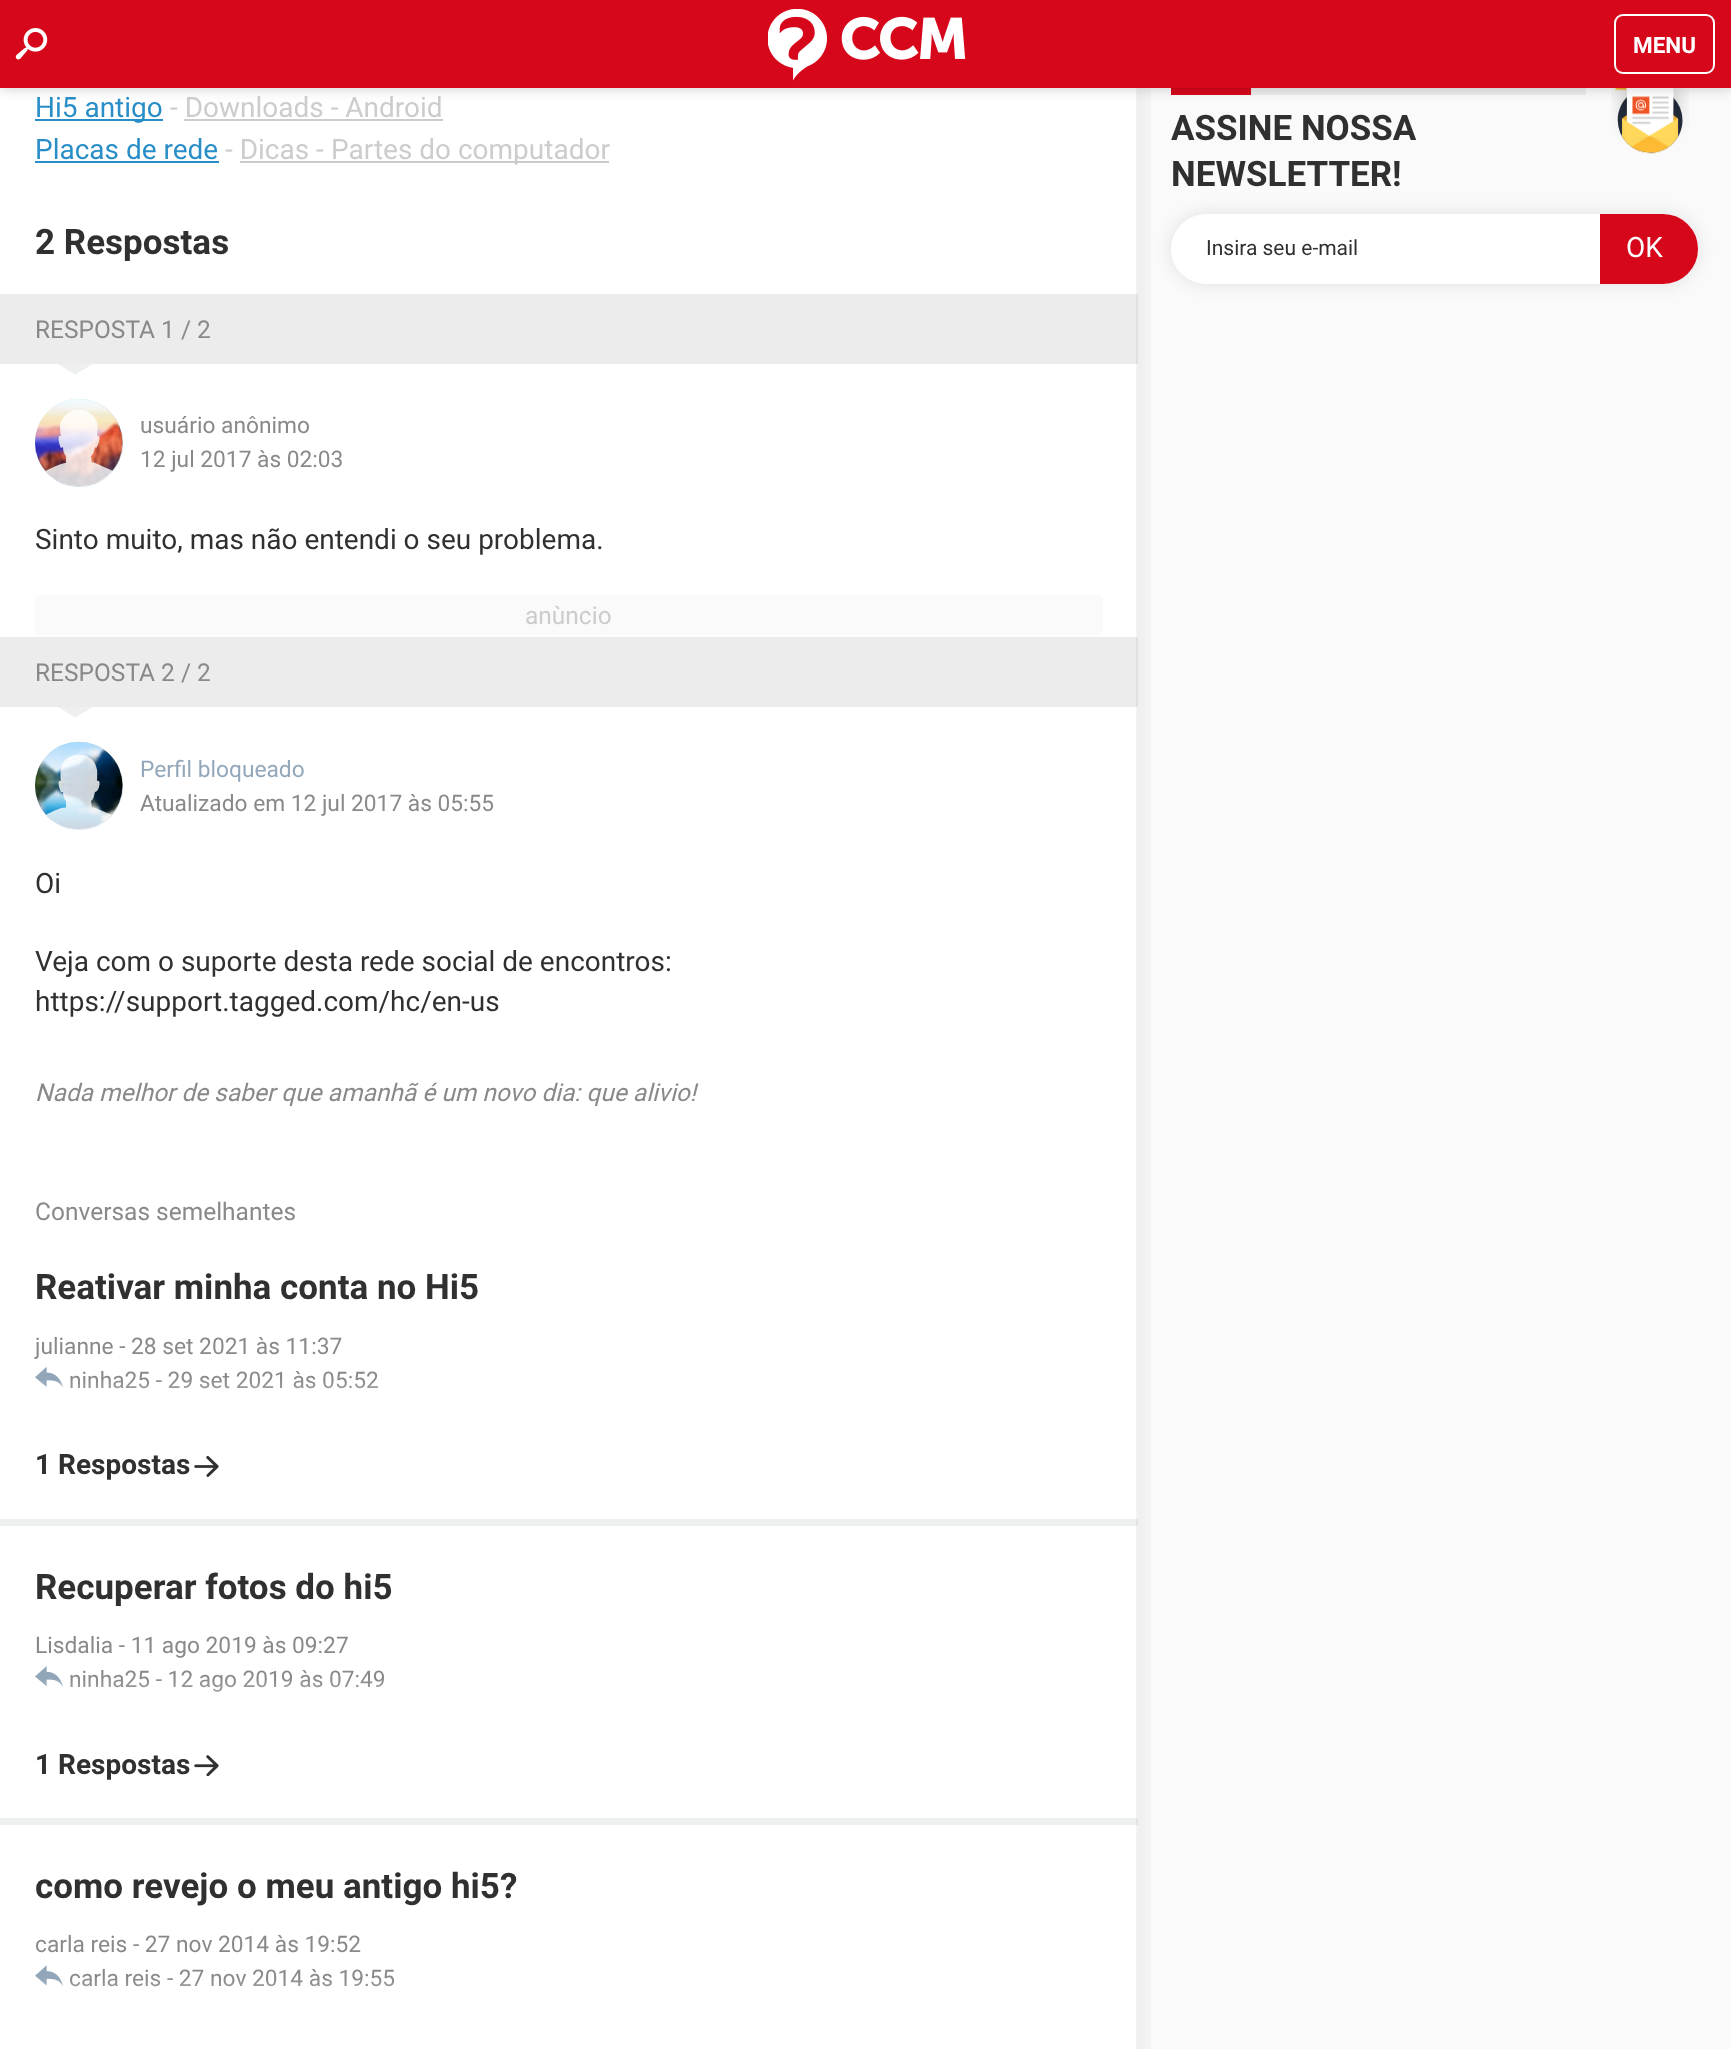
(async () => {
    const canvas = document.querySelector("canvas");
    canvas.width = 1731;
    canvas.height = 2049;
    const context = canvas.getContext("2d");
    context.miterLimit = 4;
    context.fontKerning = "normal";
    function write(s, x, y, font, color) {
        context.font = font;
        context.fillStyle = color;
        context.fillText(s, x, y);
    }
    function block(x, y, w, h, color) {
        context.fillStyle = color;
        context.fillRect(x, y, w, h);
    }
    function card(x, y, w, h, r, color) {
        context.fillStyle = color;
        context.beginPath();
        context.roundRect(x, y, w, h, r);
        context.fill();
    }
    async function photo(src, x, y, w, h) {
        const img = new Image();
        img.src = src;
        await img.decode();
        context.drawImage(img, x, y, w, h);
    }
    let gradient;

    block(0, 0, 1731, 2049, "rgb(255, 255, 255)");
    block(1138, 88, 593, 1961, "rgb(250, 250, 250)");
    block(0, 294, 1138, 70, "rgb(236, 236, 236)");
    block(0, 637, 1138, 70, "rgb(236, 236, 236)");
    block(0, 1519, 1138, 7, "rgb(238, 240, 239)");
    block(0, 1818, 1138, 7, "rgb(238, 240, 239)");
    gradient = context.createLinearGradient(1136, 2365, 1162, 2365);
    gradient.addColorStop(0, "rgba(0, 0, 0, 0.05)");
    gradient.addColorStop(1, "rgba(0, 0, 0, 0)");
    context.fillStyle = gradient;
    context.fillRect(1136, 88, 15, 1961);
    block(1251, 88, 335, 7, "rgb(236, 236, 236)");
    block(1171, 88, 80, 7, "rgb(214, 7, 27)");
    await photo("media/10.png", 1611, 88, 78, 66);
    context.fillStyle = "rgba(0, 0, 0, 0.2)";
    context.filter = "blur(7px)";
    context.beginPath();
    context.rect(0, 0, 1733, 88);
    context.fill();
    context.filter = "none";
    block(0, 0, 1731, 88, "rgb(214, 7, 27)");
    await photo("media/1.png", 15, 28, 33, 32);
    await photo("media/2.png", 768, 9, 198, 72);
    context.beginPath();
    context.roundRect(1615, 15, 99, 58, 8);
    context.strokeStyle = "rgb(255, 255, 255)";
    context.lineWidth = 2;
    context.stroke();
    write("MENU", 1633, 53, "bold 22.5px Roboto", "rgb(255, 255, 255)");
    block(35, 119, 128, 2, "rgb(41, 142, 200)");
    write("Hi5 antigo", 35, 117, "28px Roboto", "rgb(41, 142, 200)");
    write("- Downloads - Android", 170, 117, "28px Roboto", "rgb(204, 204, 204)");
    block(184, 119, 259, 2, "rgb(204, 204, 204)");
    write("Placas de rede", 35, 159, "28px Roboto", "rgb(41, 142, 200)");
    block(35, 161, 184, 2, "rgb(41, 142, 200)");
    write("- Dicas -", 225, 159, "28px Roboto", "rgb(204, 204, 204)");
    block(240, 161, 369, 2, "rgb(204, 204, 204)");
    write("Partes do computador", 331, 159, "28px Roboto", "rgb(204, 204, 204)");
    write("2 Respostas", 35, 254, "bold 35px Roboto", "rgb(48, 48, 48)");
    write("RESPOSTA 1 / 2", 35, 338, "24.5px Roboto", "rgb(137, 137, 137)");
    context.fillStyle = "rgb(238, 240, 239)";
    context.beginPath();
    context.moveTo(58, 364);
    context.lineTo(93, 364);
    context.lineTo(75, 374.5);
    context.closePath();
    context.fill();
    context.fillStyle = "rgb(176, 190, 203)";
    context.beginPath();
    context.arc(79, 443, 44, 0, Math.PI * 2);
    context.fill();
    await photo("media/3.png", 35, 398, 88, 89);
    context.save();
    context.beginPath();
    context.rect(44, 410, 70, 78);
    context.clip();
    context.fillStyle = "rgba(255, 255, 255, 0.8)";
    context.beginPath();
    context.moveTo(93, 462);
    context.lineTo(113, 471);
    context.bezierCurveTo(96, 492, 62, 492, 45, 471);
    context.bezierCurveTo(49, 469, 64, 462, 66, 463);
    context.lineTo(66, 456);
    context.bezierCurveTo(64, 454, 63, 451, 63, 447);
    context.lineTo(61, 448);
    context.bezierCurveTo(60, 447, 56, 434, 61, 436);
    context.bezierCurveTo(60, 431, 59, 424, 62, 420);
    context.bezierCurveTo(70, 406, 88, 406, 96, 420);
    context.bezierCurveTo(99, 425, 97, 431, 97, 436);
    context.bezierCurveTo(102, 434, 98, 447, 96, 448);
    context.lineTo(95, 447);
    context.bezierCurveTo(94, 451, 94, 454, 91, 456);
    context.lineTo(92, 463);
    context.closePath();
    context.fill();
    context.restore();
    write("usuário anônimo", 140, 433, "22.75px Roboto", "rgb(137, 137, 137)");
    write("12 jul 2017 às 02:03", 140, 467, "22.75px Roboto", "rgb(137, 137, 137)");
    write("Sinto muito, mas não entendi o seu problema.", 35, 549, "28px Roboto", "rgb(48, 48, 48)");
    card(35, 595, 1068, 40, 5, "rgb(250, 250, 250)");
    write("anùncio", 525, 624, "24.5px Roboto", "rgb(204, 204, 204)");
    write("RESPOSTA 2 / 2", 35, 681, "24.5px Roboto", "rgb(137, 137, 137)");
    context.fillStyle = "rgb(238, 240, 239)";
    context.beginPath();
    context.moveTo(58, 707);
    context.lineTo(93, 707);
    context.lineTo(75, 717.5);
    context.closePath();
    context.fill();
    context.fillStyle = "rgb(176, 190, 203)";
    context.beginPath();
    context.arc(79, 786, 44, 0, Math.PI * 2);
    context.fill();
    await photo("media/4.png", 35, 741, 88, 89);
    context.fillStyle = "rgba(255, 255, 255, 0.8)";
    context.beginPath();
    context.moveTo(93, 807);
    context.lineTo(112, 815);
    context.bezierCurveTo(94, 835, 63, 835, 46, 815);
    context.bezierCurveTo(51, 812, 64, 806, 66, 808);
    context.lineTo(66, 801);
    context.bezierCurveTo(64, 799, 63, 795, 63, 792);
    context.lineTo(61, 792);
    context.bezierCurveTo(60, 791, 56, 779, 61, 781);
    context.bezierCurveTo(60, 774, 60, 766, 65, 760);
    context.bezierCurveTo(74, 751, 92, 753, 96, 766);
    context.bezierCurveTo(98, 771, 97, 776, 97, 781);
    context.bezierCurveTo(102, 779, 99, 792, 95, 792);
    context.bezierCurveTo(94, 795, 94, 799, 91, 801);
    context.lineTo(92, 808);
    context.closePath();
    context.fill();
    write("Perfil bloqueado", 140, 777, "22.75px Roboto", "rgb(146, 167, 186)");
    write("Atualizado em 12 jul 2017 às 05:55", 140, 811, "22.75px Roboto", "rgb(137, 137, 137)");
    write("Oi", 35, 893, "28px Roboto", "rgb(48, 48, 48)");
    write("Veja com o suporte desta rede social de encontros:", 35, 971, "28px Roboto", "rgb(48, 48, 48)");
    write("https://support.tagged.com/hc/en-us", 35, 1011, "28px Roboto", "rgb(48, 48, 48)");
    write("Nada melhor de saber que amanhã é um novo dia: que alivio!", 35, 1101, "italic 24.5px Roboto", "rgb(137, 137, 137)");
    write("Conversas semelhantes", 35, 1220, "24.5px Roboto", "rgb(137, 137, 137)");
    write("Reativar minha conta no Hi5", 35, 1299, "bold 35px Roboto", "rgb(48, 48, 48)");
    write("julianne - 28 set 2021 às 11:37", 35, 1354, "22.75px Roboto", "rgb(137, 137, 137)");
    await photo("media/5.png", 35, 1367, 28, 21);
    write("ninha25 - 29 set 2021 às 05:52", 69, 1388, "22.75px Roboto", "rgb(137, 137, 137)");
    gradient = context.createLinearGradient(569, 1379, 569, 1519);
    gradient.addColorStop(0, "rgba(255, 255, 255, 0)");
    gradient.addColorStop(0.45, "rgb(255, 255, 255)");
    context.fillStyle = gradient;
    context.fillRect(40, 1380, 338, 9);
    write("1 Respostas", 35, 1474, "bold 28px Roboto", "rgb(48, 48, 48)");
    await photo("media/6.png", 194, 1456, 25, 21);
    write("Recuperar fotos do hi5", 35, 1599, "bold 35px Roboto", "rgb(48, 48, 48)");
    write("Lisdalia - 11 ago 2019 às 09:27", 35, 1653, "22.75px Roboto", "rgb(137, 137, 137)");
    await photo("media/7.png", 35, 1666, 28, 21);
    write("ninha25 - 12 ago 2019 às 07:49", 69, 1687, "22.75px Roboto", "rgb(137, 137, 137)");
    gradient = context.createLinearGradient(569, 1678, 569, 1818);
    gradient.addColorStop(0, "rgba(255, 255, 255, 0)");
    gradient.addColorStop(0.45, "rgb(255, 255, 255)");
    context.fillStyle = gradient;
    context.fillRect(40, 1679, 344, 13);
    write("1 Respostas", 35, 1774, "bold 28px Roboto", "rgb(48, 48, 48)");
    await photo("media/8.png", 194, 1755, 25, 21);
    write("como revejo o meu antigo hi5?", 35, 1898, "bold 35px Roboto", "rgb(48, 48, 48)");
    write("carla reis - 27 nov 2014 às 19:52", 35, 1952, "22.75px Roboto", "rgb(137, 137, 137)");
    await photo("media/9.png", 35, 1965, 28, 21);
    write("carla reis - 27 nov 2014 às 19:55", 69, 1986, "22.75px Roboto", "rgb(137, 137, 137)");
    gradient = context.createLinearGradient(569, 1978, 569, 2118);
    gradient.addColorStop(0, "rgba(255, 255, 255, 0)");
    gradient.addColorStop(0.45, "rgb(255, 255, 255)");
    context.fillStyle = gradient;
    context.fillRect(41, 1979, 353, 8);
    write("ASSINE NOSSA", 1171, 140, "bold 35px Roboto", "rgb(48, 48, 48)");
    write("NEWSLETTER!", 1171, 186, "bold 35px Roboto", "rgb(48, 48, 48)");
    context.fillStyle = "rgba(0, 0, 0, 0.1)";
    context.filter = "blur(9px)";
    context.beginPath();
    context.roundRect(1171, 214, 527, 70, 35);
    context.fill();
    context.filter = "none";
    card(1171, 214, 527, 70, 35, "rgb(255, 255, 255)");
    write("Insira seu e-mail", 1206, 255, "21px Roboto", "rgb(48, 48, 48)");
    context.fillStyle = "rgb(214, 7, 27)";
    context.beginPath();
    context.roundRect(1602, 216, 94, 66, [0, 33, 33, 0]);
    context.fill();
    context.strokeStyle = "rgb(214, 7, 27)";
    context.lineWidth = 4;
    context.stroke();
    write("OK", 1626, 257, "28px Roboto", "rgb(255, 255, 255)");
})();
